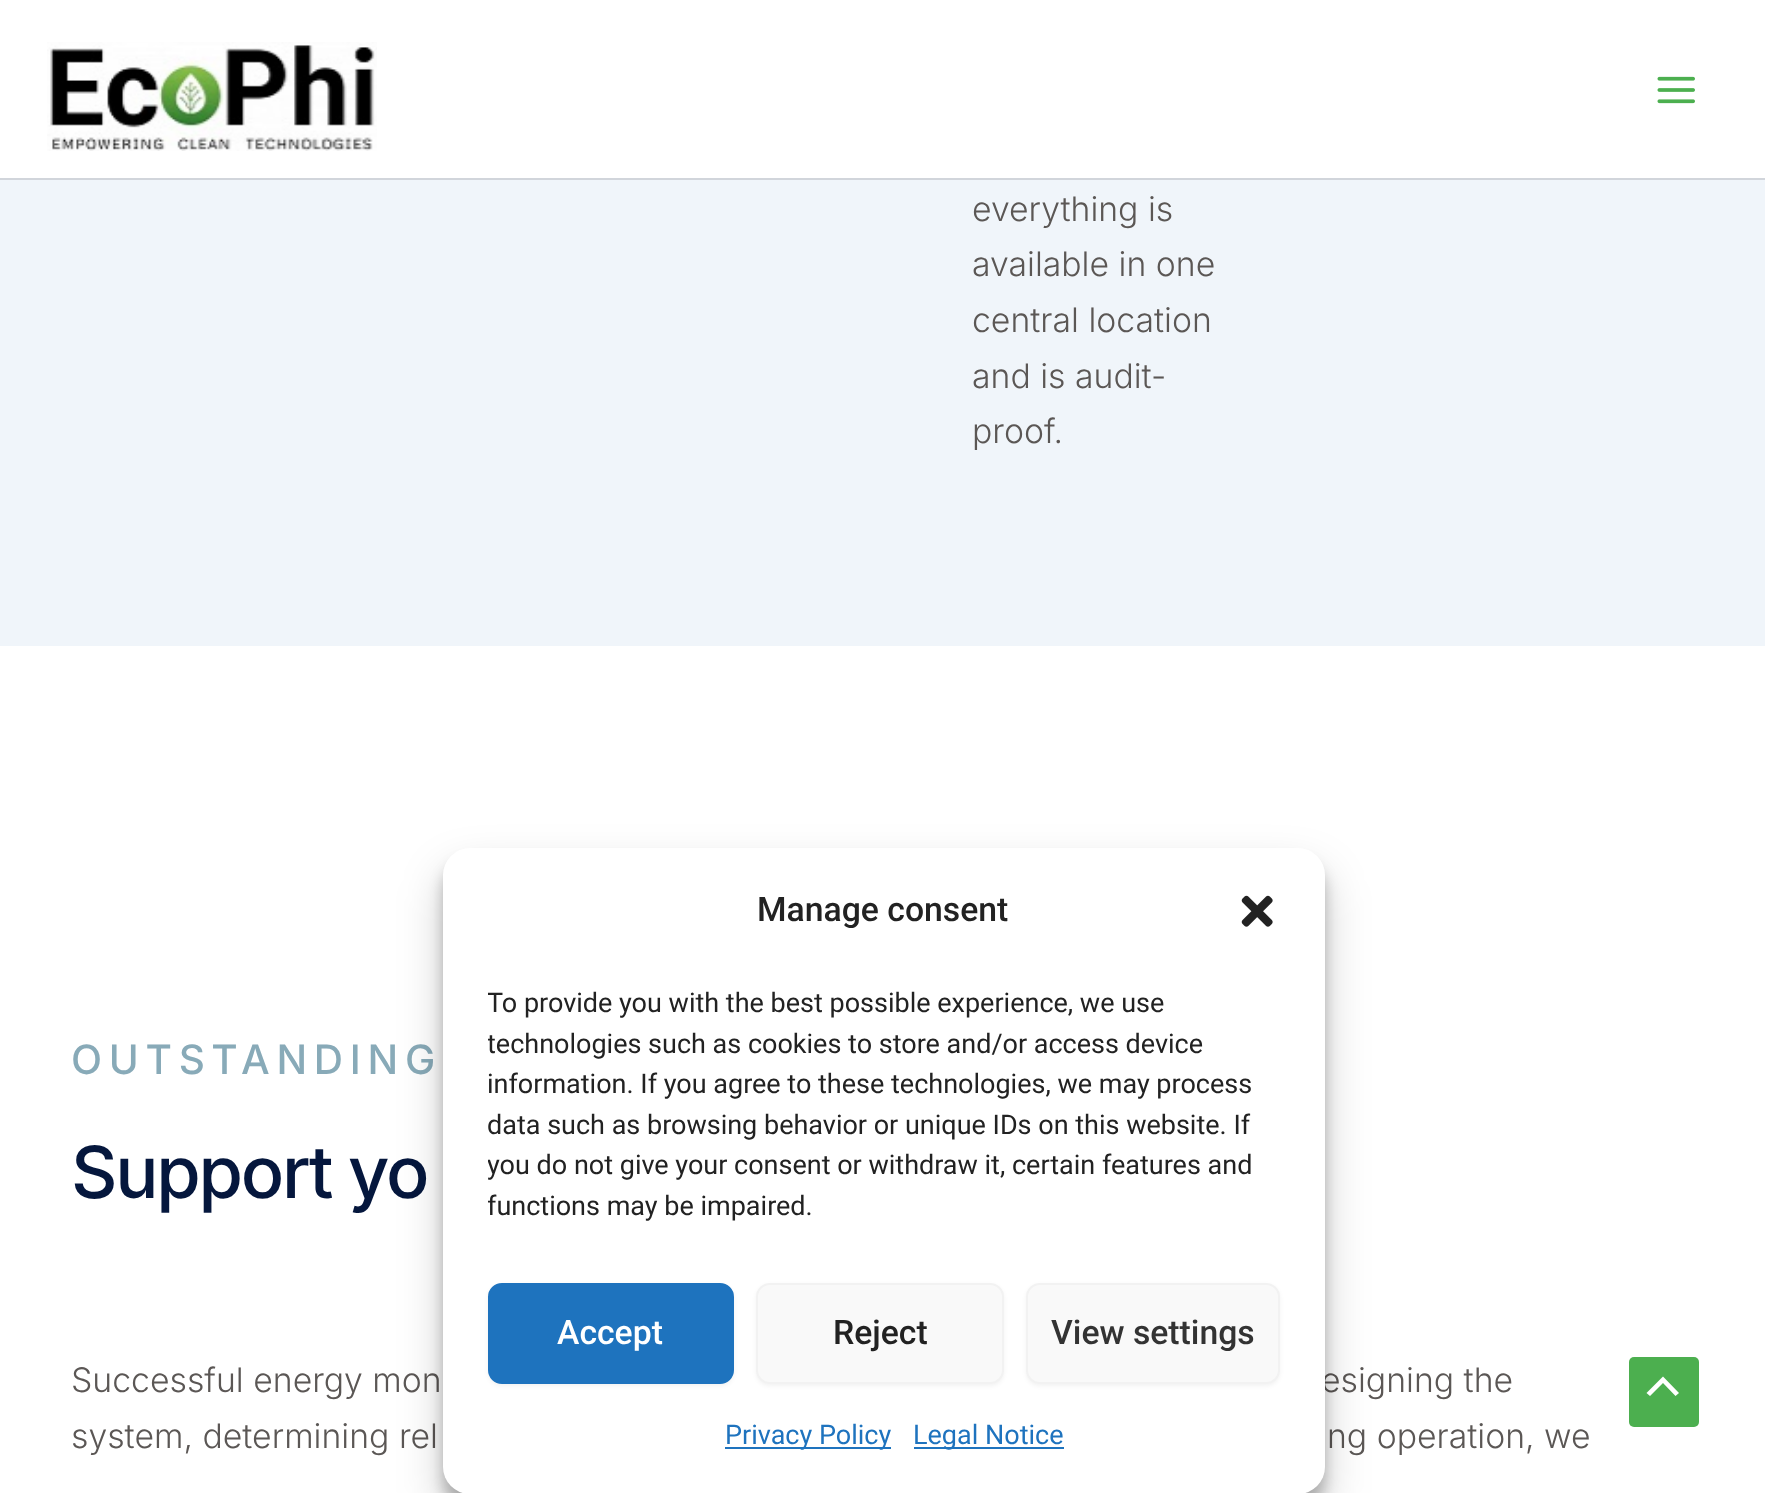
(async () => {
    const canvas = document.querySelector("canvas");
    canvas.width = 1765;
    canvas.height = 1493;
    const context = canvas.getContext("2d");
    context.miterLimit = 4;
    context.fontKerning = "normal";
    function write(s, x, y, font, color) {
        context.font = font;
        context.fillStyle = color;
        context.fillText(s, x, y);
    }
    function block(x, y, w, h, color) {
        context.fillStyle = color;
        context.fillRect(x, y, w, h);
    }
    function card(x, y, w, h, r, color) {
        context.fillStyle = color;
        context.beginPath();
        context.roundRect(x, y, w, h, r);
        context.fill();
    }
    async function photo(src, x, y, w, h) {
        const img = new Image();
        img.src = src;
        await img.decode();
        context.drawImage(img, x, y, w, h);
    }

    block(0, 0, 1765, 1493, "rgb(255, 255, 255)");
    block(0, 178, 1765, 2, "rgb(209, 213, 219)");
    await photo("media/1.png", 47, 42, 330, 109);
    await photo("media/2.png", 1657, 76, 38, 28);
    block(0, 180, 1765, 466, "rgb(240, 245, 250)");
    write("everything is", 972, 221, "300 33.75px Inter", "rgb(91, 87, 85)");
    write("available in one", 972, 276, "300 33.75px Inter", "rgb(91, 87, 85)");
    write("central location", 972, 332, "300 33.75px Inter", "rgb(91, 87, 85)");
    write("and is audit-", 972, 388, "300 33.75px Inter", "rgb(91, 87, 85)");
    write("proof.", 972, 443, "300 33.75px Inter", "rgb(91, 87, 85)");
    context.letterSpacing = "6.75px";
    write("OUTSTANDING", 71, 1074, "500 40.5px Inter", "rgb(136, 170, 184)");
    context.letterSpacing = "-2.25px";
    write("Support yo", 71, 1198, "500 72px Inter", "rgb(5, 23, 61)");
    context.letterSpacing = "0px";
    write("Successful energy mon", 71, 1392, "300 33.75px Inter", "rgb(91, 87, 85)");
    write("esigning the", 1321, 1392, "300 33.75px Inter", "rgb(91, 87, 85)");
    write("system, determining rel", 71, 1448, "300 33.75px Inter", "rgb(91, 87, 85)");
    write("ng operation, we", 1327, 1448, "300 33.75px Inter", "rgb(91, 87, 85)");
    context.fillStyle = "rgba(0, 0, 0, 0.23)";
    context.filter = "blur(7px)";
    context.beginPath();
    context.roundRect(443, 862, 882, 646, 27);
    context.fill();
    context.filter = "none";
    context.fillStyle = "rgba(0, 0, 0, 0.19)";
    context.filter = "blur(22.5px)";
    context.beginPath();
    context.roundRect(443, 871, 882, 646, 27);
    context.fill();
    context.filter = "none";
    card(443, 848, 882, 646, 27, "rgb(255, 255, 255)");
    write("Manage consent", 757, 921, "500 33.75px Roboto", "rgb(34, 34, 34)");
    await photo("media/3.png", 1241, 895, 32, 32);
    context.save();
    context.beginPath();
    context.rect(488, 983, 792, 255);
    context.clip();
    write("To provide you with the best possible experience, we use", 487, 1012, "27px Roboto", "rgb(34, 34, 34)");
    write("technologies such as cookies to store and/or access device", 487, 1053, "27px Roboto", "rgb(34, 34, 34)");
    context.restore();
    write("information. If you agree to these technologies, we may process", 487, 1093, "27px Roboto", "rgb(34, 34, 34)");
    context.save();
    context.beginPath();
    context.rect(488, 983, 792, 255);
    context.clip();
    write("data such as browsing behavior or unique IDs on this website. If", 487, 1134, "27px Roboto", "rgb(34, 34, 34)");
    write("you do not give your consent or withdraw it, certain features and", 487, 1174, "27px Roboto", "rgb(34, 34, 34)");
    write("functions may be impaired.", 487, 1215, "27px Roboto", "rgb(34, 34, 34)");
    context.restore();
    context.fillStyle = "rgba(0, 0, 0, 0.05)";
    context.filter = "blur(2px)";
    context.beginPath();
    context.roundRect(488, 1285, 246, 101, 14);
    context.fill();
    context.filter = "none";
    context.fillStyle = "rgb(30, 115, 190)";
    context.beginPath();
    context.roundRect(489, 1284, 244, 99, 13);
    context.fill();
    context.strokeStyle = "rgb(30, 115, 190)";
    context.lineWidth = 2;
    context.stroke();
    write("Accept", 557, 1344, "500 33.75px Roboto", "rgb(255, 255, 255)");
    context.fillStyle = "rgba(0, 0, 0, 0.05)";
    context.filter = "blur(2px)";
    context.beginPath();
    context.roundRect(756, 1285, 248, 101, 14);
    context.fill();
    context.filter = "none";
    context.fillStyle = "rgb(249, 249, 249)";
    context.beginPath();
    context.roundRect(757, 1284, 246, 99, 13);
    context.fill();
    context.strokeStyle = "rgb(242, 242, 242)";
    context.stroke();
    write("Reject", 833, 1344, "500 33.75px Roboto", "rgb(34, 34, 34)");
    context.fillStyle = "rgba(0, 0, 0, 0.05)";
    context.filter = "blur(2px)";
    context.beginPath();
    context.roundRect(1026, 1285, 254, 101, 14);
    context.fill();
    context.filter = "none";
    context.fillStyle = "rgb(249, 249, 249)";
    context.beginPath();
    context.roundRect(1027, 1284, 252, 99, 13);
    context.fill();
    context.stroke();
    write("View settings", 1051, 1344, "500 33.75px Roboto", "rgb(51, 51, 51)");
    block(725, 1447, 166, 2, "rgb(30, 115, 190)");
    write("Privacy Policy", 725, 1444, "27px Roboto", "rgb(30, 115, 190)");
    block(914, 1447, 150, 2, "rgb(30, 115, 190)");
    write("Legal Notice", 913, 1444, "27px Roboto", "rgb(30, 115, 190)");
    card(1629, 1357, 70, 70, 5, "rgb(76, 175, 79)");
    context.fillStyle = "rgb(255, 255, 255)";
    context.beginPath();
    context.moveTo(1679, 1393);
    context.lineTo(1663, 1376.5);
    context.lineTo(1646.5, 1393);
    context.lineTo(1650, 1396);
    context.lineTo(1663, 1383);
    context.lineTo(1675.5, 1396);
    context.closePath();
    context.fill();
})();
